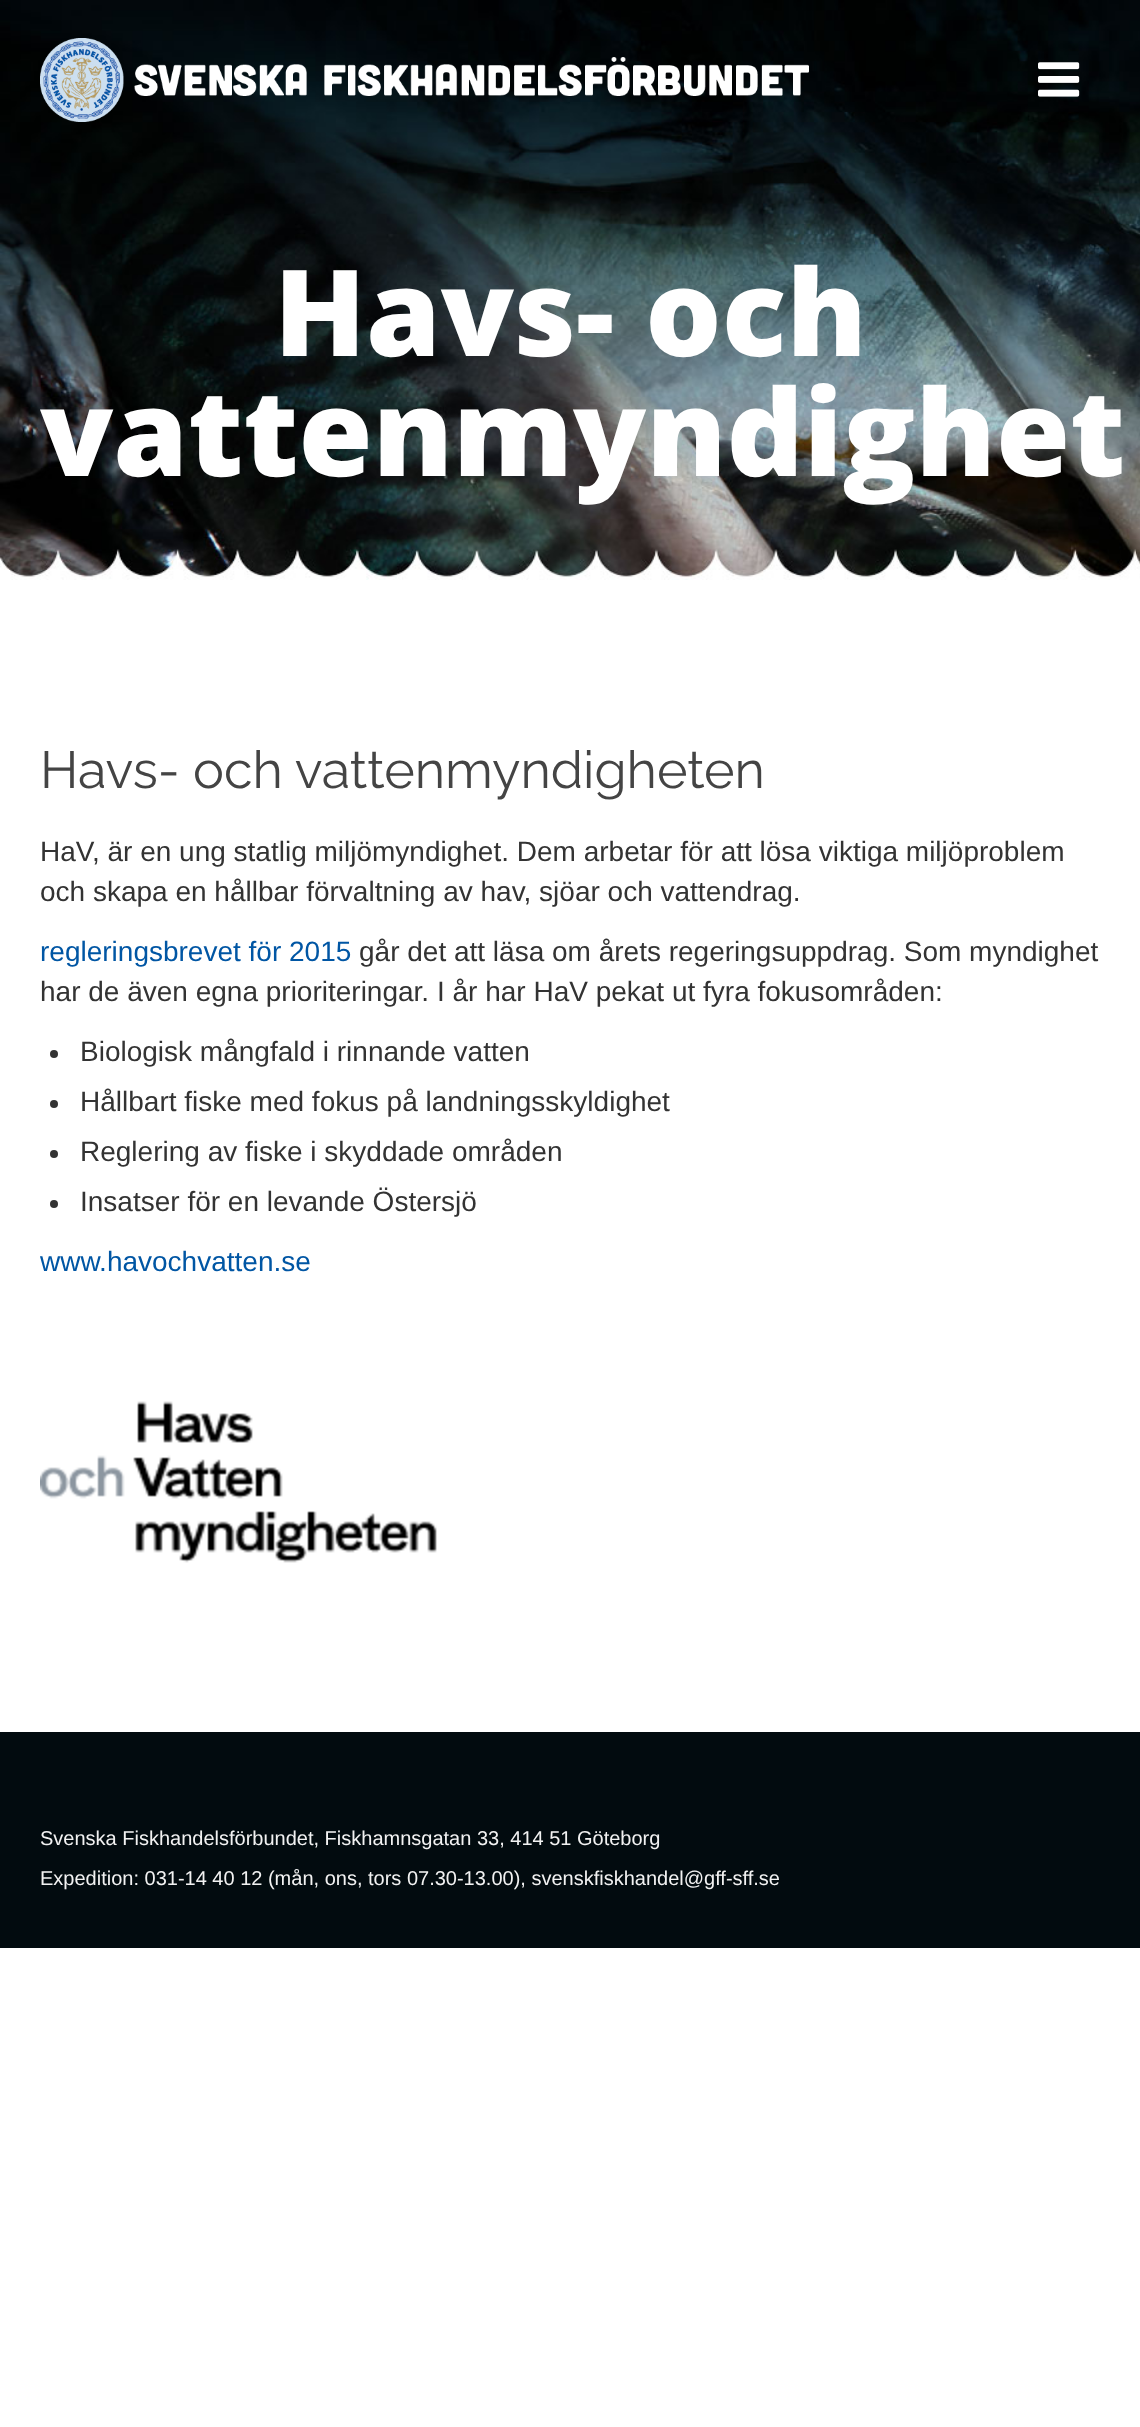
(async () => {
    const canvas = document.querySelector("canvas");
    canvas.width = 1140;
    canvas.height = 2427;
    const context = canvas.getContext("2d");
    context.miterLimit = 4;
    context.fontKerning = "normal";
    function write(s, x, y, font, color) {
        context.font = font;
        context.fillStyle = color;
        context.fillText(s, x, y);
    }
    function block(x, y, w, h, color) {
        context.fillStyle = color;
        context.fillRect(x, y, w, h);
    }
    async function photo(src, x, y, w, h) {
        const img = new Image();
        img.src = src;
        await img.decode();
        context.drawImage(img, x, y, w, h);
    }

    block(0, 0, 1140, 2427, "rgb(255, 255, 255)");
    await photo("media/3.png", 0, 0, 1140, 580);
    await photo("media/1.png", 40, 38, 769, 84);
    await photo("media/2.png", 1038, 62, 42, 35);
    write("Havs- och", 274, 356, "800 120px Open Sans", "rgb(255, 255, 255)");
    write("vattenmyndighet", 40, 476, "800 120px Open Sans", "rgb(255, 255, 255)");
    write("Havs- och vattenmyndigheten", 40, 788, "52px Raleway", "rgb(68, 68, 68)");
    write("HaV, är en ung statlig miljömyndighet. Dem arbetar för att lösa viktiga miljöproblem", 40, 861, "28px Liberation Sans", "rgb(51, 51, 51)");
    write("och skapa en hållbar förvaltning av hav, sjöar och vattendrag.", 40, 901, "28px Liberation Sans", "rgb(51, 51, 51)");
    write("regleringsbrevet för 2015", 40, 961, "28px Liberation Sans", "rgb(0, 86, 164)");
    write("går det att läsa om årets regeringsuppdrag. Som myndighet", 359, 961, "28px Liberation Sans", "rgb(51, 51, 51)");
    write("har de även egna prioriteringar. I år har HaV pekat ut fyra fokusområden:", 40, 1001, "28px Liberation Sans", "rgb(51, 51, 51)");
    context.beginPath();
    context.arc(54, 1054, 4, 0, Math.PI * 2);
    context.fill();
    write("Biologisk mångfald i rinnande vatten", 80, 1061, "28px Liberation Sans", "rgb(51, 51, 51)");
    context.beginPath();
    context.arc(54, 1104, 4, 0, Math.PI * 2);
    context.fill();
    write("Hållbart fiske med fokus på landningsskyldighet", 80, 1111, "28px Liberation Sans", "rgb(51, 51, 51)");
    context.beginPath();
    context.arc(54, 1154, 4, 0, Math.PI * 2);
    context.fill();
    write("Reglering av fiske i skyddade områden", 80, 1161, "28px Liberation Sans", "rgb(51, 51, 51)");
    context.beginPath();
    context.arc(54, 1204, 4, 0, Math.PI * 2);
    context.fill();
    write("Insatser för en levande Östersjö", 80, 1211, "28px Liberation Sans", "rgb(51, 51, 51)");
    write("www.havochvatten.se", 40, 1271, "28px Liberation Sans", "rgb(0, 86, 164)");
    await photo("media/4.png", 40, 1401, 397, 162);
    block(0, 1732, 1140, 216, "rgb(2, 11, 15)");
    write("Svenska Fiskhandelsförbundet, Fiskhamnsgatan 33, 414 51 Göteborg", 40, 1845, "20px Liberation Sans", "rgb(242, 242, 242)");
    write("Expedition: 031-14 40 12 (mån, ons, tors 07.30-13.00), svenskfiskhandel@gff-sff.se", 40, 1885, "20px Liberation Sans", "rgb(242, 242, 242)");
})();
